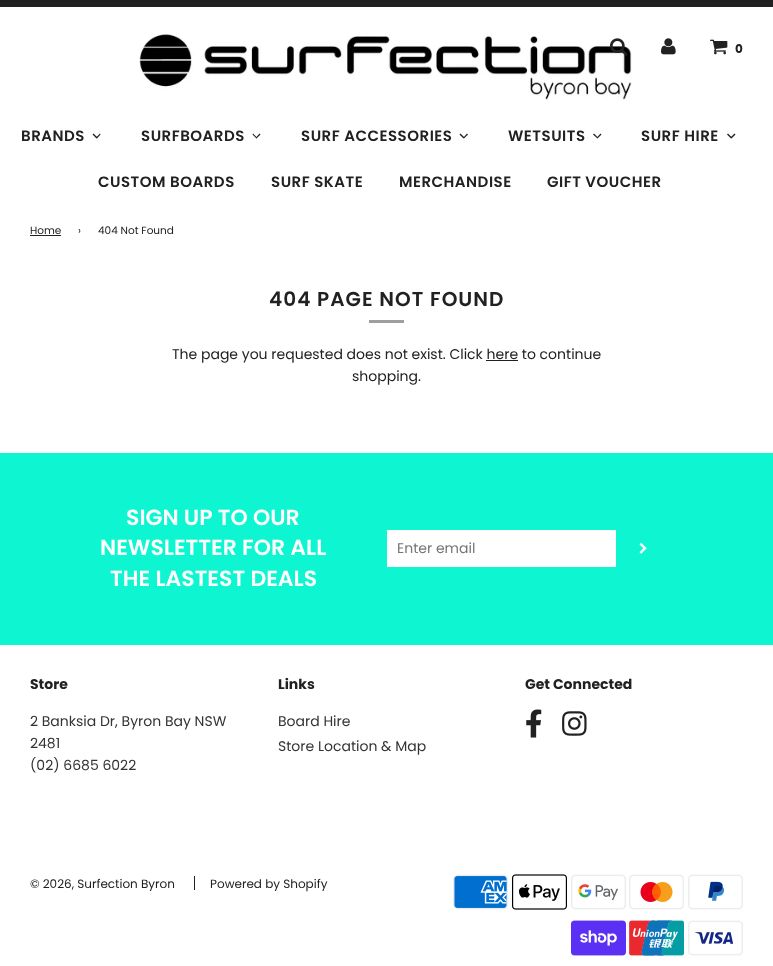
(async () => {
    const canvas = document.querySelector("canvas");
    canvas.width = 773;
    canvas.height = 966;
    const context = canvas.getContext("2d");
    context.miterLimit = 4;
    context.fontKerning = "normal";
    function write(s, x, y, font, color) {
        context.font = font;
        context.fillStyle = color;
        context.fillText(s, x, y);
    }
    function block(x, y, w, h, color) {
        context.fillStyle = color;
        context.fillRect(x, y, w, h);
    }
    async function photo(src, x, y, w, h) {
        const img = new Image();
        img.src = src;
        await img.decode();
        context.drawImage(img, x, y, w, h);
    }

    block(0, 0, 773, 966, "rgb(255, 255, 255)");
    block(0, 0, 773, 7, "rgb(33, 33, 33)");
    await photo("media/1.png", 139, 34, 493, 66);
    await photo("media/2.png", 610, 38, 18, 18);
    await photo("media/3.png", 661, 38, 15, 17);
    await photo("media/4.png", 710, 39, 18, 16);
    write("0", 735, 53, "bold 12px Poppins", "rgb(33, 33, 33)");
    context.letterSpacing = "0.5px";
    write("BRANDS", 21, 141, "600 15px Poppins", "rgb(33, 33, 33)");
    context.beginPath();
    context.moveTo(100, 133.5);
    context.lineTo(100.5, 134.5);
    context.lineTo(97, 138.5);
    context.lineTo(96, 137.5);
    context.closePath();
    context.fill();
    context.beginPath();
    context.moveTo(93.5, 133.5);
    context.lineTo(97.5, 137.5);
    context.lineTo(96.5, 138.5);
    context.lineTo(92.5, 134.5);
    context.closePath();
    context.fill();
    write("SURFBOARDS", 141, 141, "600 15px Poppins", "rgb(33, 33, 33)");
    context.beginPath();
    context.moveTo(259.5, 133.5);
    context.lineTo(260.5, 134.5);
    context.lineTo(256.5, 138.5);
    context.lineTo(256, 137.5);
    context.closePath();
    context.fill();
    context.beginPath();
    context.moveTo(253, 133.5);
    context.lineTo(257, 137.5);
    context.lineTo(256.5, 138.5);
    context.lineTo(252.5, 134.5);
    context.closePath();
    context.fill();
    write("SURF ACCESSORIES", 301, 141, "600 15px Poppins", "rgb(33, 33, 33)");
    context.beginPath();
    context.moveTo(467, 133.5);
    context.lineTo(468, 134.5);
    context.lineTo(464, 138.5);
    context.lineTo(463.5, 137.5);
    context.closePath();
    context.fill();
    context.beginPath();
    context.moveTo(460.5, 133.5);
    context.lineTo(464.5, 137.5);
    context.lineTo(463.5, 138.5);
    context.lineTo(459.5, 134.5);
    context.closePath();
    context.fill();
    write("WETSUITS", 508, 141, "600 15px Poppins", "rgb(33, 33, 33)");
    context.beginPath();
    context.moveTo(600.5, 133.5);
    context.lineTo(601.5, 134.5);
    context.lineTo(597.5, 138.5);
    context.lineTo(597, 137.5);
    context.closePath();
    context.fill();
    context.beginPath();
    context.moveTo(594, 133.5);
    context.lineTo(598, 137.5);
    context.lineTo(597.5, 138.5);
    context.lineTo(593, 134.5);
    context.closePath();
    context.fill();
    write("SURF HIRE", 641, 141, "600 15px Poppins", "rgb(33, 33, 33)");
    context.beginPath();
    context.moveTo(734.5, 133.5);
    context.lineTo(735.5, 134.5);
    context.lineTo(731.5, 138.5);
    context.lineTo(730.5, 137.5);
    context.closePath();
    context.fill();
    context.beginPath();
    context.moveTo(728, 133.5);
    context.lineTo(732, 137.5);
    context.lineTo(731, 138.5);
    context.lineTo(727, 134.5);
    context.closePath();
    context.fill();
    write("CUSTOM BOARDS", 98, 187, "600 15px Poppins", "rgb(33, 33, 33)");
    write("SURF SKATE", 271, 187, "600 15px Poppins", "rgb(33, 33, 33)");
    write("MERCHANDISE", 399, 187, "600 15px Poppins", "rgb(33, 33, 33)");
    write("GIFT VOUCHER", 547, 187, "600 15px Poppins", "rgb(33, 33, 33)");
    context.letterSpacing = "0px";
    write("Home", 30, 234, "10.5px Poppins", "rgb(33, 33, 33)");
    block(30, 235, 31, 1, "rgb(33, 33, 33)");
    write("›", 78, 234, "10.5px Poppins", "rgb(33, 33, 33)");
    write("404 Not Found", 98, 234, "10.5px Poppins", "rgb(33, 33, 33)");
    context.letterSpacing = "1px";
    write("404 PAGE NOT FOUND", 269, 306, "600 20px Poppins", "rgb(33, 33, 33)");
    block(369, 320, 35, 3, "rgb(158, 158, 158)");
    context.letterSpacing = "0px";
    write("The page you requested does not exist. Click here to continue", 172, 359, "14px Poppins", "rgb(33, 33, 33)");
    block(486, 360, 32, 1, "rgb(33, 33, 33)");
    write("shopping.", 352, 381, "14px Poppins", "rgb(33, 33, 33)");
    block(0, 453, 773, 192, "rgb(13, 245, 209)");
    write("SIGN UP TO OUR", 126, 525, "600 22px Poppins", "rgb(255, 255, 255)");
    write("NEWSLETTER FOR ALL", 100, 555, "600 22px Poppins", "rgb(255, 255, 255)");
    write("THE LASTEST DEALS", 110, 586, "600 22px Poppins", "rgb(255, 255, 255)");
    block(387, 530, 229, 37, "rgb(255, 255, 255)");
    write("Enter email", 397, 553, "14px Poppins", "rgb(117, 117, 117)");
    await photo("media/5.png", 639, 542, 8, 12);
    write("Store", 30, 689, "bold 14px Poppins", "rgb(33, 33, 33)");
    write("2 Banksia Dr, Byron Bay NSW", 30, 726, "14px Poppins", "rgb(52, 52, 52)");
    write("2481", 30, 748, "14px Poppins", "rgb(52, 52, 52)");
    write("(02) 6685 6022", 30, 770, "14px Poppins", "rgb(52, 52, 52)");
    write("Links", 278, 689, "bold 14px Poppins", "rgb(33, 33, 33)");
    write("Board Hire", 278, 726, "14px Poppins", "rgb(52, 52, 52)");
    write("Store Location & Map", 278, 751, "14px Poppins", "rgb(52, 52, 52)");
    write("Get Connected", 525, 689, "bold 14px Poppins", "rgb(33, 33, 33)");
    await photo("media/6.png", 526, 709, 16, 29);
    await photo("media/7.png", 562, 711, 25, 25);
    write("© 2026, Surfection Byron", 30, 888, "12px Poppins", "rgb(33, 33, 33)");
    block(194, 876, 1, 14, "rgb(33, 33, 33)");
    write("Powered by Shopify", 210, 888, "12px Poppins", "rgb(33, 33, 33)");
    await photo("media/8.png", 453, 874, 55, 36);
    await photo("media/9.png", 512, 874, 55, 36);
    await photo("media/10.png", 571, 874, 55, 36);
    await photo("media/11.png", 629, 874, 55, 36);
    await photo("media/12.png", 688, 874, 55, 36);
    await photo("media/13.png", 571, 920, 55, 36);
    await photo("media/14.png", 629, 920, 55, 36);
    await photo("media/15.png", 688, 920, 55, 36);
})();
